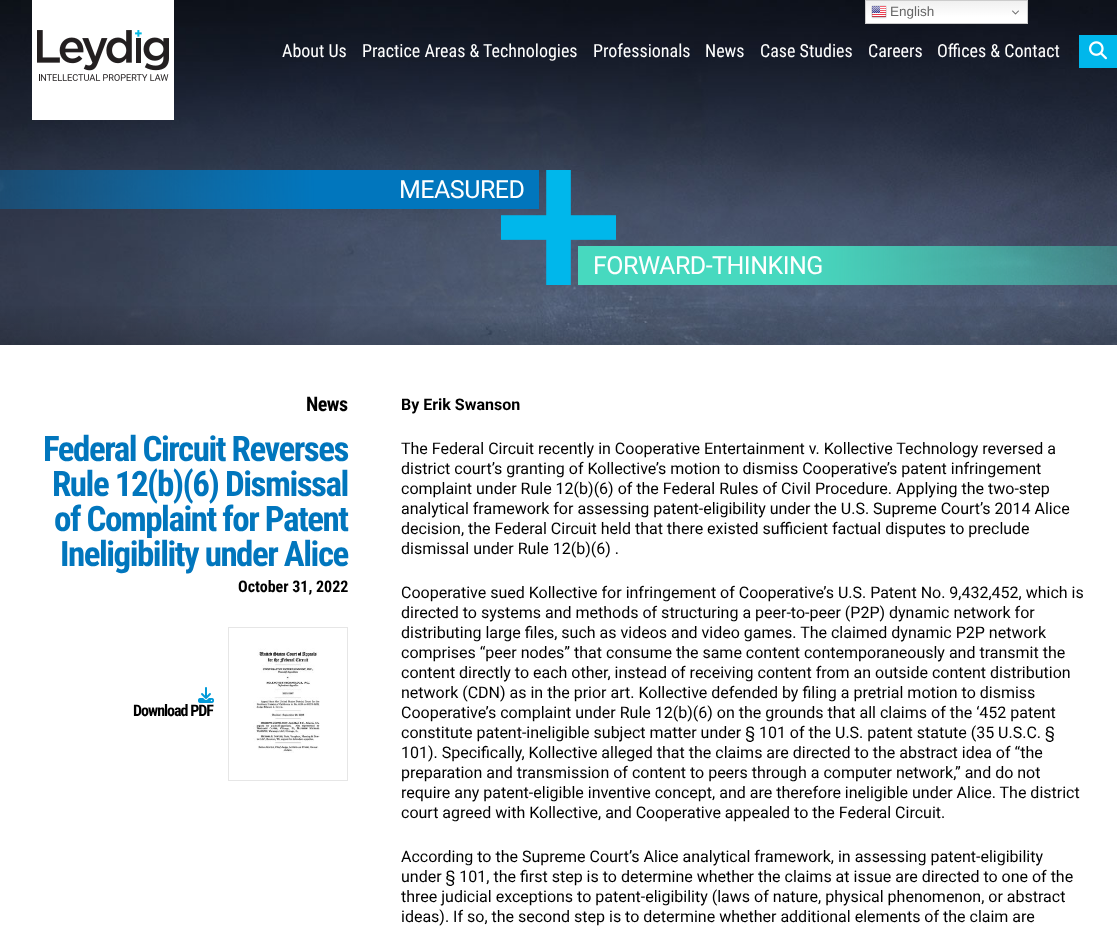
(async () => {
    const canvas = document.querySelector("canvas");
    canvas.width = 1117;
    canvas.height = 928;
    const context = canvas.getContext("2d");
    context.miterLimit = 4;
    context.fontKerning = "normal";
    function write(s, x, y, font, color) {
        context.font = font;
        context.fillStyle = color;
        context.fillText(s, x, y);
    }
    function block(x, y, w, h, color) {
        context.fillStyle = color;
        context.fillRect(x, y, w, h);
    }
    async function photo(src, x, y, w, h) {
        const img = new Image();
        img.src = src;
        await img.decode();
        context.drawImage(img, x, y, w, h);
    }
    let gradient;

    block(0, 0, 1117, 928, "rgb(255, 255, 255)");
    await photo("media/3.png", 0, 0, 1117, 345);
    gradient = context.createLinearGradient(947, 0, 947, 24);
    gradient.addColorStop(0, "rgb(239, 239, 239)");
    gradient.addColorStop(0.7, "rgb(255, 255, 255)");
    context.fillStyle = gradient;
    context.fillRect(866, 1, 161, 22);
    context.strokeStyle = "rgb(204, 204, 204)";
    context.strokeRect(865.5, 0.5, 162, 23);
    await photo("media/1.png", 871, 5, 16, 14);
    write("English", 890, 16, "13.5px Liberation Sans", "rgb(102, 102, 102)");
    await photo("media/2.png", 1012, 10, 7, 5);
    gradient = context.createLinearGradient(559, 300, 559, 600);
    gradient.addColorStop(0, "rgba(0, 0, 0, 0)");
    gradient.addColorStop(1, "rgb(0, 0, 0)");
    context.fillStyle = gradient;
    context.fillRect(0, 306, 1117, 39);
    block(32, 0, 142, 120, "rgb(255, 255, 255)");
    await photo("media/4.png", 37, 30, 132, 51);
    write("About Us", 282, 57, "18px Roboto Condensed", "rgb(255, 255, 255)");
    write("Practice Areas & Technologies", 362, 57, "18px Roboto Condensed", "rgb(255, 255, 255)");
    write("Professionals", 593, 57, "18px Roboto Condensed", "rgb(255, 255, 255)");
    write("News", 705, 57, "18px Roboto Condensed", "rgb(255, 255, 255)");
    write("Case Studies", 760, 57, "18px Roboto Condensed", "rgb(255, 255, 255)");
    write("Careers", 868, 57, "18px Roboto Condensed", "rgb(255, 255, 255)");
    write("Offices & Contact", 937, 57, "18px Roboto Condensed", "rgb(255, 255, 255)");
    block(1079, 35, 38, 33, "rgb(0, 183, 235)");
    await photo("media/5.png", 1089, 41, 18, 19);
    await photo("media/6.png", 501, 170, 115, 115);
    context.letterSpacing = "-0.5px";
    write("MEASURED", 399, 198, "25px Roboto", "rgb(255, 255, 255)");
    write("FORWARD-THINKING", 593, 274, "25px Roboto", "rgb(255, 255, 255)");
    write("News", 306, 411, "bold 20px Roboto Condensed", "rgb(0, 0, 0)");
    context.letterSpacing = "-1.5px";
    write("Federal Circuit Reverses", 43, 461, "bold 35px Roboto Condensed", "rgb(1, 118, 189)");
    write("Rule 12(b)(6) Dismissal", 52, 496, "bold 35px Roboto Condensed", "rgb(1, 118, 189)");
    write("of Complaint for Patent", 54, 531, "bold 35px Roboto Condensed", "rgb(1, 118, 189)");
    write("Ineligibility under Alice", 60, 566, "bold 35px Roboto Condensed", "rgb(1, 118, 189)");
    context.letterSpacing = "0px";
    write("October 31, 2022", 238, 592, "bold 16px Roboto Condensed", "rgb(0, 0, 0)");
    await photo("media/7.png", 198, 687, 16, 16);
    context.letterSpacing = "-1px";
    write("Download PDF", 133, 716, "bold 16px Roboto Condensed", "rgb(0, 0, 0)");
    context.strokeStyle = "rgb(230, 230, 230)";
    context.strokeRect(228.5, 627.5, 119, 153);
    await photo("media/8.png", 253, 648, 67, 105);
    context.letterSpacing = "0px";
    write("By Erik Swanson", 401, 410, "bold 16px Roboto", "rgb(0, 0, 0)");
    write("The Federal Circuit recently in Cooperative Entertainment v. Kollective Technology reversed a", 401, 454, "16px Roboto", "rgb(0, 0, 0)");
    write("district court’s granting of Kollective’s motion to dismiss Cooperative’s patent infringement", 401, 474, "16px Roboto", "rgb(0, 0, 0)");
    write("complaint under Rule 12(b)(6) of the Federal Rules of Civil Procedure. Applying the two-step", 401, 494, "16px Roboto", "rgb(0, 0, 0)");
    write("analytical framework for assessing patent-eligibility under the U.S. Supreme Court’s 2014 Alice", 401, 514, "16px Roboto", "rgb(0, 0, 0)");
    write("decision, the Federal Circuit held that there existed sufficient factual disputes to preclude", 401, 534, "16px Roboto", "rgb(0, 0, 0)");
    write("dismissal under Rule 12(b)(6) .", 401, 554, "16px Roboto", "rgb(0, 0, 0)");
    write("Cooperative sued Kollective for infringement of Cooperative’s U.S. Patent No. 9,432,452, which is", 401, 598, "16px Roboto", "rgb(0, 0, 0)");
    write("directed to systems and methods of structuring a peer-to-peer (P2P) dynamic network for", 401, 618, "16px Roboto", "rgb(0, 0, 0)");
    write("distributing large files, such as videos and video games. The claimed dynamic P2P network", 401, 638, "16px Roboto", "rgb(0, 0, 0)");
    write("comprises “peer nodes” that consume the same content contemporaneously and transmit the", 401, 658, "16px Roboto", "rgb(0, 0, 0)");
    write("content directly to each other, instead of receiving content from an outside content distribution", 401, 678, "16px Roboto", "rgb(0, 0, 0)");
    write("network (CDN) as in the prior art. Kollective defended by filing a pretrial motion to dismiss", 401, 698, "16px Roboto", "rgb(0, 0, 0)");
    write("Cooperative’s complaint under Rule 12(b)(6) on the grounds that all claims of the ‘452 patent", 401, 718, "16px Roboto", "rgb(0, 0, 0)");
    write("constitute patent-ineligible subject matter under § 101 of the U.S. patent statute (35 U.S.C. §", 401, 738, "16px Roboto", "rgb(0, 0, 0)");
    write("101). Specifically, Kollective alleged that the claims are directed to the abstract idea of “the", 401, 758, "16px Roboto", "rgb(0, 0, 0)");
    write("preparation and transmission of content to peers through a computer network,” and do not", 401, 778, "16px Roboto", "rgb(0, 0, 0)");
    write("require any patent-eligible inventive concept, and are therefore ineligible under Alice. The district", 401, 798, "16px Roboto", "rgb(0, 0, 0)");
    write("court agreed with Kollective, and Cooperative appealed to the Federal Circuit.", 401, 818, "16px Roboto", "rgb(0, 0, 0)");
    write("According to the Supreme Court’s Alice analytical framework, in assessing patent-eligibility", 401, 862, "16px Roboto", "rgb(0, 0, 0)");
    write("under § 101, the first step is to determine whether the claims at issue are directed to one of the", 401, 882, "16px Roboto", "rgb(0, 0, 0)");
    write("three judicial exceptions to patent-eligibility (laws of nature, physical phenomenon, or abstract", 401, 902, "16px Roboto", "rgb(0, 0, 0)");
    write("ideas). If so, the second step is to determine whether additional elements of the claim are", 401, 922, "16px Roboto", "rgb(0, 0, 0)");
})();
